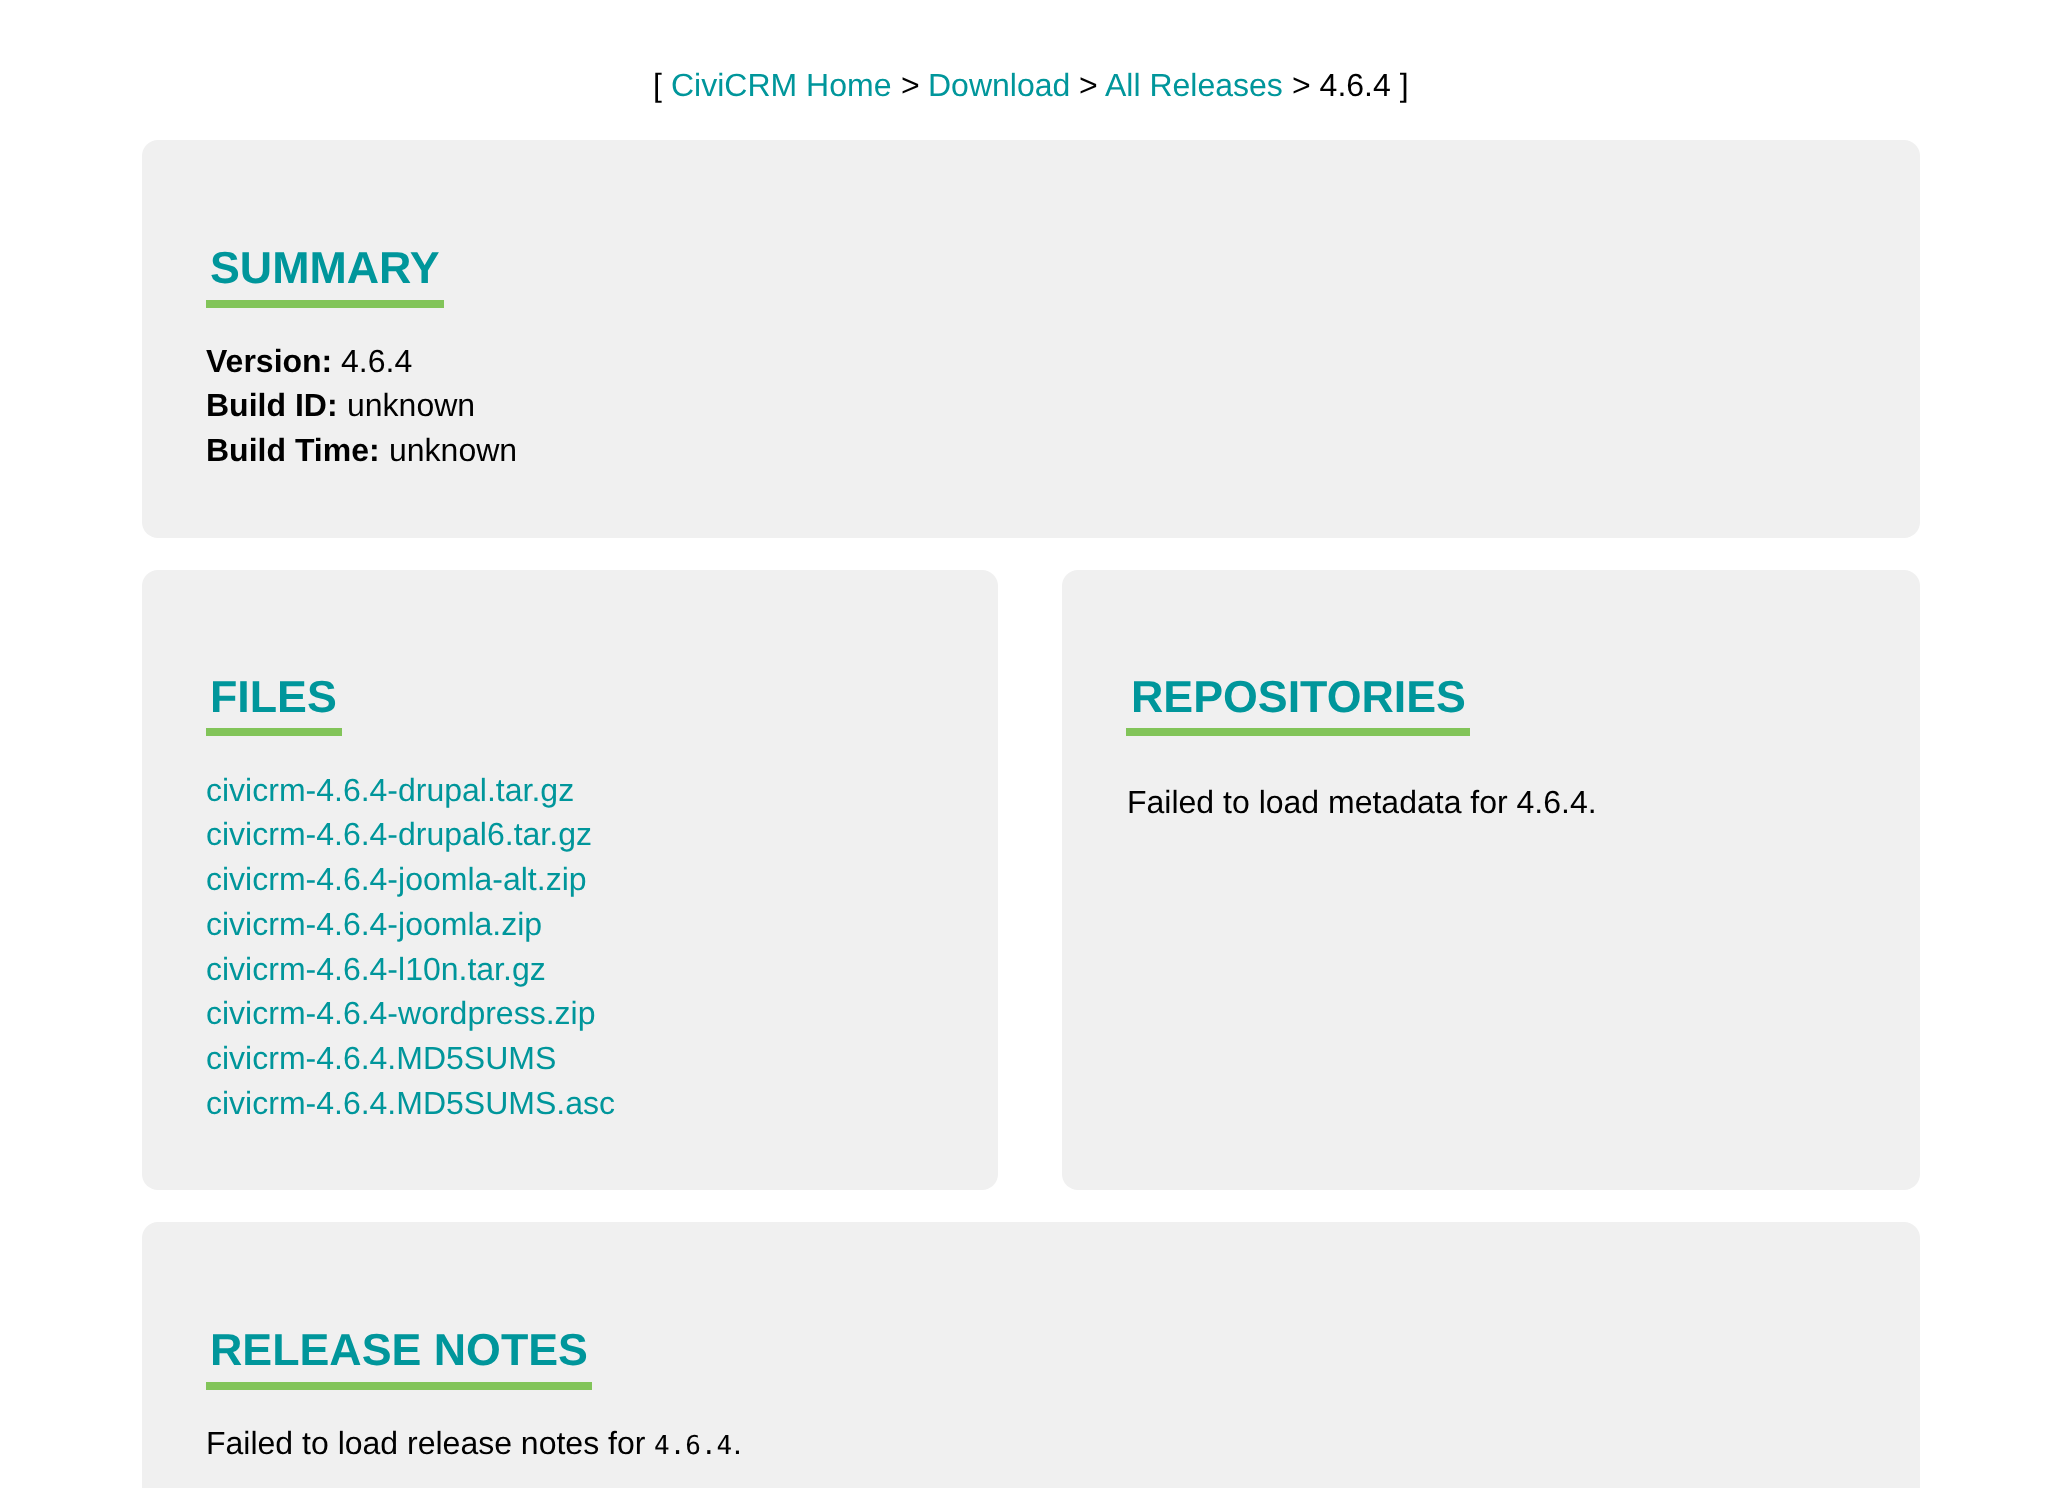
(async () => {
    const canvas = document.querySelector("canvas");
    canvas.width = 2061;
    canvas.height = 1488;
    const context = canvas.getContext("2d");
    context.miterLimit = 4;
    context.fontKerning = "normal";
    function write(s, x, y, font, color) {
        context.font = font;
        context.fillStyle = color;
        context.fillText(s, x, y);
    }
    function block(x, y, w, h, color) {
        context.fillStyle = color;
        context.fillRect(x, y, w, h);
    }
    function card(x, y, w, h, r, color) {
        context.fillStyle = color;
        context.beginPath();
        context.roundRect(x, y, w, h, r);
        context.fill();
    }

    block(0, 0, 2061, 1488, "rgb(255, 255, 255)");
    write("[", 653, 96, "32px Liberation Sans", "rgb(0, 0, 0)");
    write("CiviCRM Home", 671, 96, "32px Liberation Sans", "rgb(0, 150, 155)");
    write(">", 901, 96, "32px Liberation Sans", "rgb(0, 0, 0)");
    write("Download", 928, 96, "32px Liberation Sans", "rgb(0, 150, 155)");
    write(">", 1079, 96, "32px Liberation Sans", "rgb(0, 0, 0)");
    write("All Releases", 1105, 96, "32px Liberation Sans", "rgb(0, 150, 155)");
    write("> 4.6.4 ]", 1292, 96, "32px Liberation Sans", "rgb(0, 0, 0)");
    card(142, 140, 1778, 398, 16, "rgb(240, 240, 240)");
    block(206, 300, 238, 8, "rgb(130, 196, 89)");
    write("SUMMARY", 210, 283, "bold 44.75px Liberation Sans", "rgb(0, 150, 155)");
    write("Version:", 206, 372, "bold 32px Liberation Sans", "rgb(0, 0, 0)");
    write("4.6.4", 341, 372, "32px Liberation Sans", "rgb(0, 0, 0)");
    write("Build ID:", 206, 416, "bold 32px Liberation Sans", "rgb(0, 0, 0)");
    write("unknown", 347, 416, "32px Liberation Sans", "rgb(0, 0, 0)");
    write("Build Time:", 206, 461, "bold 32px Liberation Sans", "rgb(0, 0, 0)");
    write("unknown", 389, 461, "32px Liberation Sans", "rgb(0, 0, 0)");
    card(142, 570, 856, 620, 16, "rgb(240, 240, 240)");
    block(206, 728, 136, 8, "rgb(130, 196, 89)");
    write("FILES", 210, 712, "bold 44.75px Liberation Sans", "rgb(0, 150, 155)");
    write("civicrm-4.6.4-drupal.tar.gz", 206, 801, "32px Liberation Sans", "rgb(0, 150, 155)");
    write("civicrm-4.6.4-drupal6.tar.gz", 206, 845, "32px Liberation Sans", "rgb(0, 150, 155)");
    write("civicrm-4.6.4-joomla-alt.zip", 206, 890, "32px Liberation Sans", "rgb(0, 150, 155)");
    write("civicrm-4.6.4-joomla.zip", 206, 935, "32px Liberation Sans", "rgb(0, 150, 155)");
    write("civicrm-4.6.4-l10n.tar.gz", 206, 980, "32px Liberation Sans", "rgb(0, 150, 155)");
    write("civicrm-4.6.4-wordpress.zip", 206, 1024, "32px Liberation Sans", "rgb(0, 150, 155)");
    write("civicrm-4.6.4.MD5SUMS", 206, 1069, "32px Liberation Sans", "rgb(0, 150, 155)");
    write("civicrm-4.6.4.MD5SUMS.asc", 206, 1114, "32px Liberation Sans", "rgb(0, 150, 155)");
    card(1062, 570, 858, 620, 16, "rgb(240, 240, 240)");
    block(1126, 728, 344, 8, "rgb(130, 196, 89)");
    write("REPOSITORIES", 1131, 712, "bold 44.75px Liberation Sans", "rgb(0, 150, 155)");
    write("Failed to load metadata for 4.6.4.", 1127, 813, "32px Liberation Sans", "rgb(0, 0, 0)");
    card(142, 1222, 1778, 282, 16, "rgb(240, 240, 240)");
    block(206, 1382, 386, 8, "rgb(130, 196, 89)");
    write("RELEASE NOTES", 210, 1365, "bold 44.75px Liberation Sans", "rgb(0, 150, 155)");
    write("Failed to load release notes for", 206, 1454, "32px Liberation Sans", "rgb(0, 0, 0)");
    write("4.6.4", 654, 1454, "26px DejaVu Sans Mono", "rgb(0, 0, 0)");
    write(".", 733, 1454, "32px Liberation Sans", "rgb(0, 0, 0)");
})();
